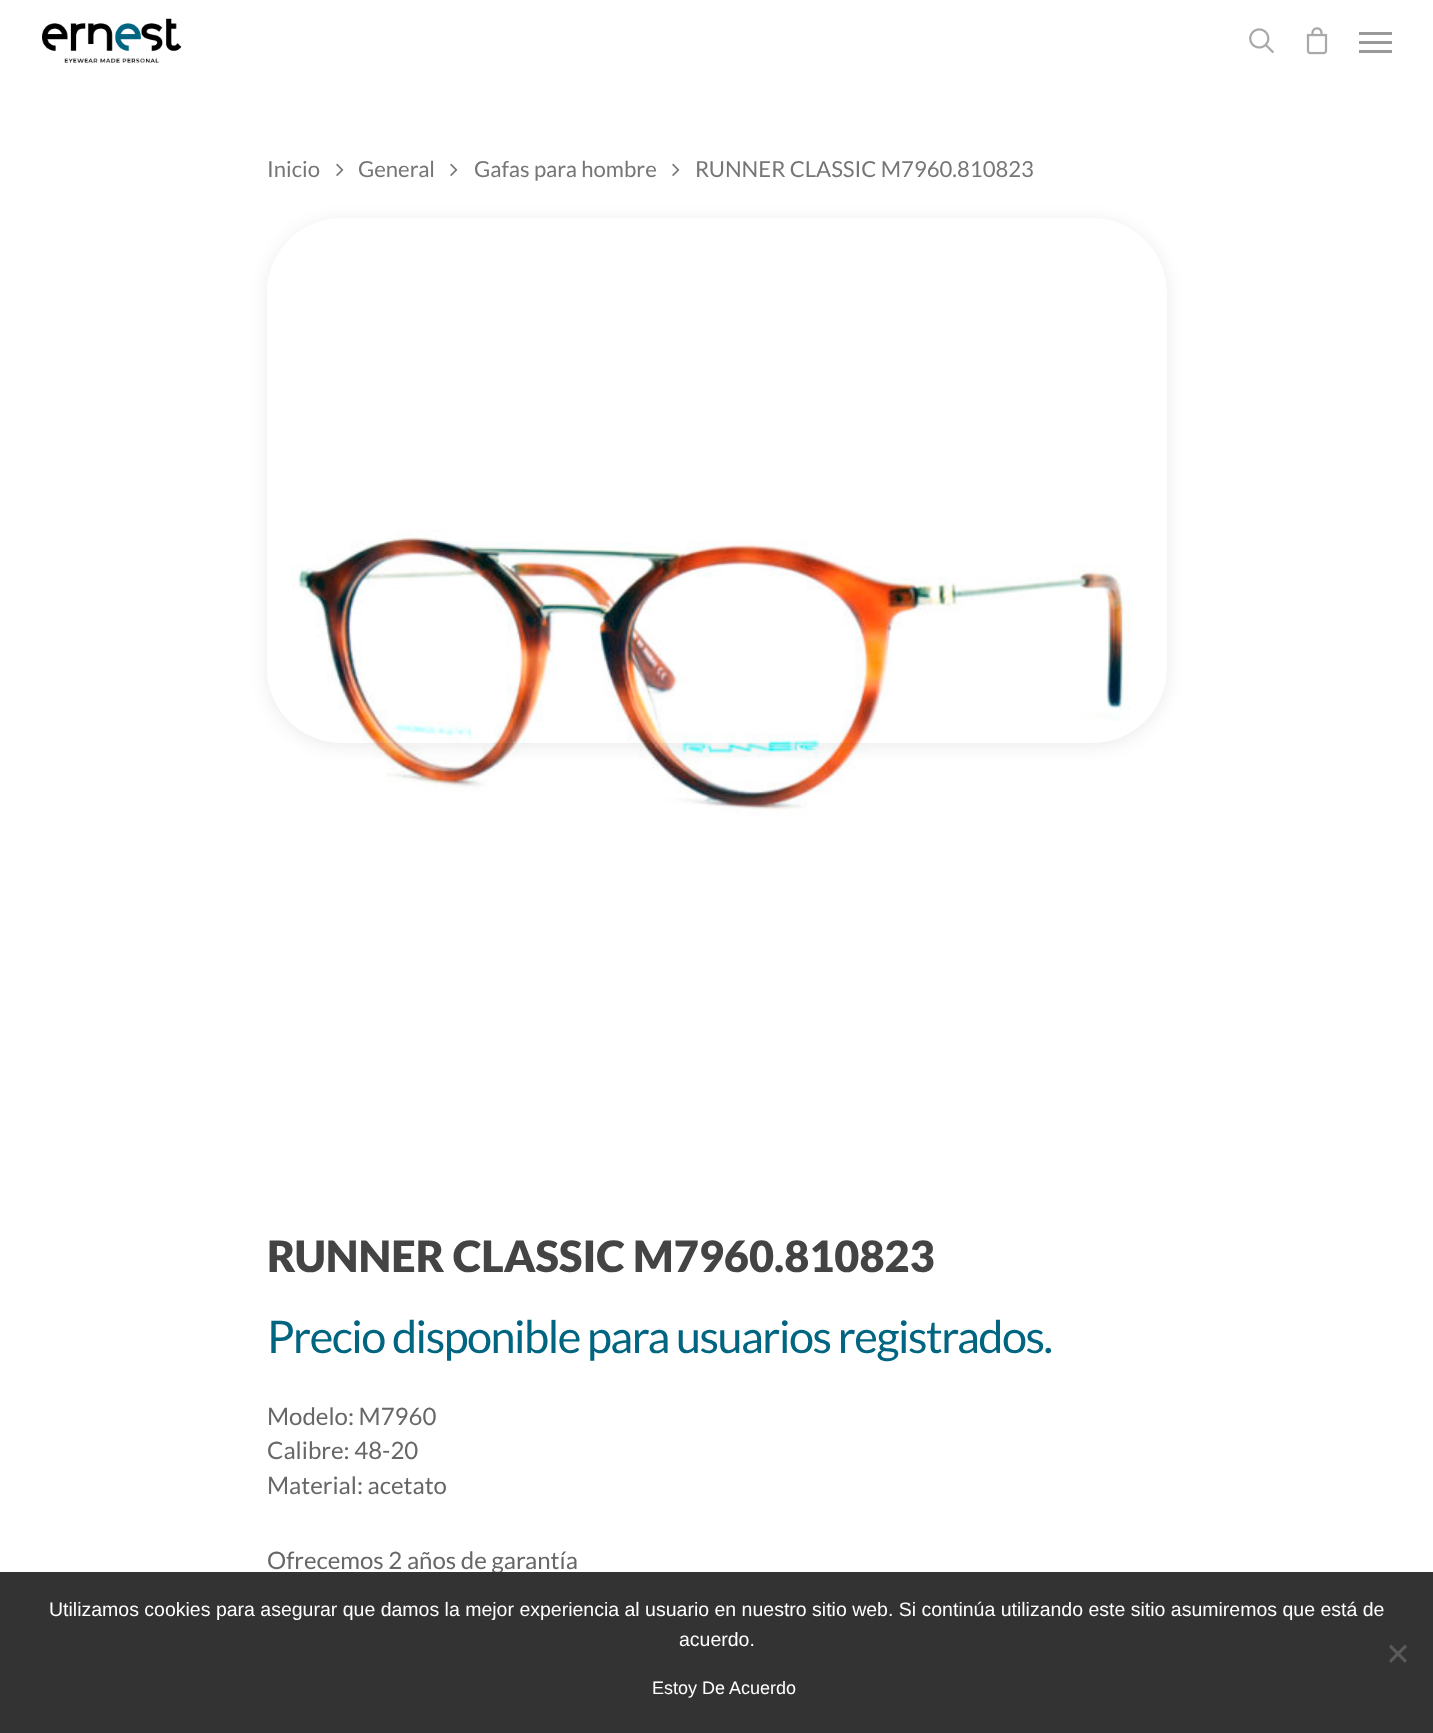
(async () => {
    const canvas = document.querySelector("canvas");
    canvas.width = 1433;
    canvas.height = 1733;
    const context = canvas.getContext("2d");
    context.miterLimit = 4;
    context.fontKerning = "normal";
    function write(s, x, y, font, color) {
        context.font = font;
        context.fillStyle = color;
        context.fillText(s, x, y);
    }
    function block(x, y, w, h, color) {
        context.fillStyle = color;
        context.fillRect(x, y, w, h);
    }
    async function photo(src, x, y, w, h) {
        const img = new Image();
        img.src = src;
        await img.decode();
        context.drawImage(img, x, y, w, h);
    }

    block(0, 0, 1433, 1733, "rgb(255, 255, 255)");
    await photo("media/1.png", 42, 18, 140, 45);
    await photo("media/2.png", 1249, 28, 25, 25);
    await photo("media/3.png", 1306, 27, 22, 28);
    block(1359, 32, 33, 3, "rgb(153, 153, 153)");
    block(1359, 50, 33, 3, "rgb(153, 153, 153)");
    block(1359, 41, 33, 3, "rgb(153, 153, 153)");
    write("Inicio", 267, 177, "22.1px Lato", "rgb(118, 118, 118)");
    await photo("media/4.png", 336, 163, 8, 13);
    write("General", 358, 177, "22.1px Lato", "rgb(118, 118, 118)");
    await photo("media/4.png", 450, 163, 8, 13);
    write("Gafas para hombre", 474, 177, "22.1px Lato", "rgb(118, 118, 118)");
    await photo("media/4.png", 672, 163, 8, 13);
    write("RUNNER CLASSIC M7960.810823", 695, 177, "22.1px Lato", "rgb(118, 118, 118)");
    await photo("media/5.png", 291, 530, 840, 287);
    context.save();
    context.beginPath();
    context.moveTo(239, 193);
    context.lineTo(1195, 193);
    context.lineTo(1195, 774);
    context.lineTo(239, 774);
    context.closePath();
    context.moveTo(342, 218);
    context.lineTo(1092, 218);
    context.bezierCurveTo(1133.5, 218, 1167, 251.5, 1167, 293);
    context.lineTo(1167, 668);
    context.bezierCurveTo(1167, 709.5, 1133.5, 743, 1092, 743);
    context.lineTo(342, 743);
    context.bezierCurveTo(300.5, 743, 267, 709.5, 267, 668);
    context.lineTo(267, 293);
    context.bezierCurveTo(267, 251.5, 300.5, 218, 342, 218);
    context.closePath();
    context.clip("evenodd");
    context.fillStyle = "rgba(0, 0, 0, 0.08)";
    context.filter = "blur(9px)";
    context.beginPath();
    context.roundRect(267, 221, 900, 525, 75);
    context.fill();
    context.filter = "none";
    context.restore();
    write("RUNNER CLASSIC M7960.810823", 267, 1272, "900 43.25px Lato", "rgb(68, 68, 68)");
    context.letterSpacing = "-1.5px";
    write("Precio disponible para usuarios registrados.", 267, 1353, "45px Lato", "rgb(0, 101, 128)");
    context.letterSpacing = "0px";
    write("Modelo: M7960", 267, 1425, "24px Lato", "rgb(103, 103, 103)");
    write("Calibre: 48-20", 267, 1459, "24px Lato", "rgb(103, 103, 103)");
    write("Material: acetato", 267, 1494, "24px Lato", "rgb(103, 103, 103)");
    write("Ofrecemos 2 años de garantía", 267, 1569, "24px Lato", "rgb(103, 103, 103)");
    block(0, 1572, 1433, 161, "rgb(51, 51, 51)");
    write("Utilizamos cookies para asegurar que damos la mejor experiencia al usuario en nuestro sitio web. Si continúa utilizando este sitio asumiremos que está de", 49, 1616, "19.5px Liberation Sans", "rgb(255, 255, 255)");
    write("acuerdo.", 679, 1646, "19.5px Liberation Sans", "rgb(255, 255, 255)");
    context.fillStyle = "rgb(90, 90, 90)";
    context.beginPath();
    context.moveTo(1405, 1644.5);
    context.lineTo(1407, 1647);
    context.lineTo(1391, 1663);
    context.lineTo(1389, 1660.5);
    context.closePath();
    context.fill();
    context.beginPath();
    context.moveTo(1389, 1647);
    context.lineTo(1391, 1644.5);
    context.lineTo(1407, 1660.5);
    context.lineTo(1405, 1663);
    context.closePath();
    context.fill();
    write("Estoy De Acuerdo", 652, 1694, "18px Liberation Sans", "rgb(255, 255, 255)");
})();
